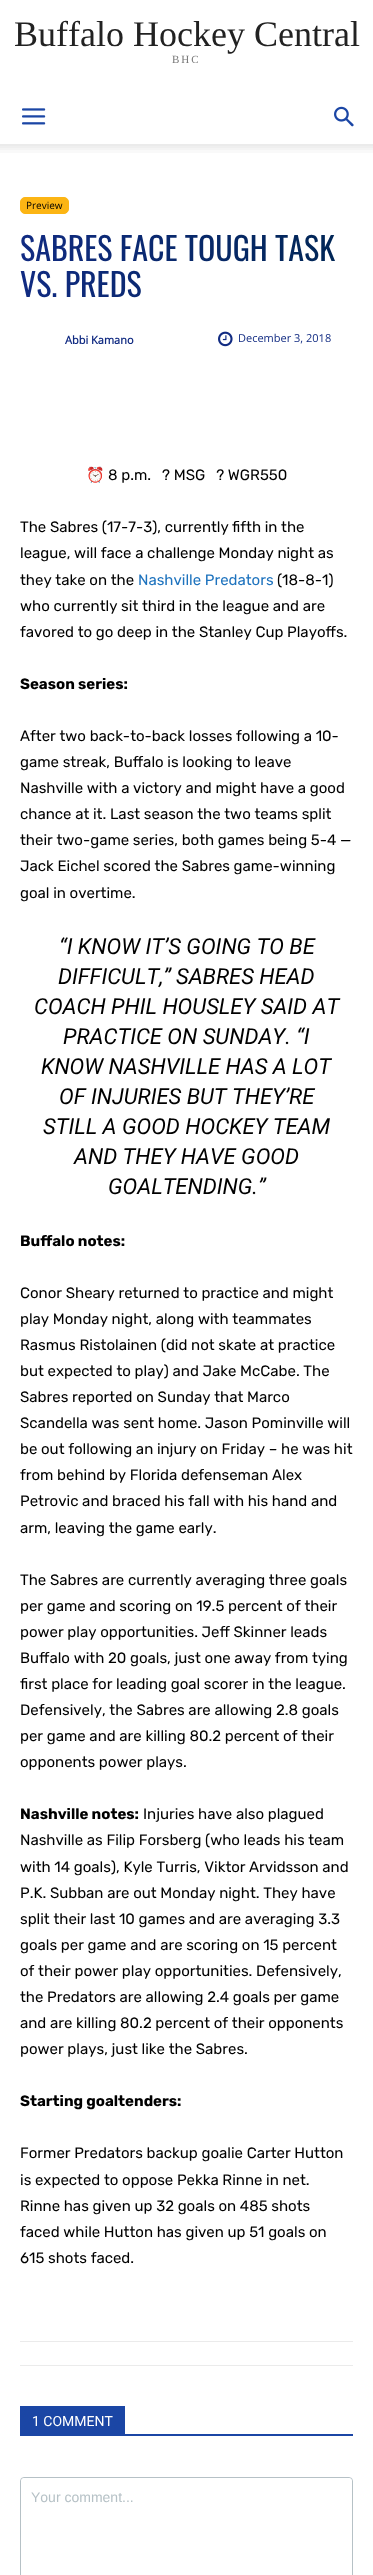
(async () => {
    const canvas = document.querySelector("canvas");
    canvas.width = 373;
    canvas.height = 2575;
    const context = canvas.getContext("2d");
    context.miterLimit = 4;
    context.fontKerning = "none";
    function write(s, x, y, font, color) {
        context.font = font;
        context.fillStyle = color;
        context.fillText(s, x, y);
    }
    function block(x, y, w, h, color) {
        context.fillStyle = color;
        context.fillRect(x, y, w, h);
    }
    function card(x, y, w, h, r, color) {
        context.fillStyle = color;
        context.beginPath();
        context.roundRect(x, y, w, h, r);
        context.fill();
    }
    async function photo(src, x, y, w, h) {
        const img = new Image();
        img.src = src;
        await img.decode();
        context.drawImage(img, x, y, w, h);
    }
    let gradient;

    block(0, 0, 373, 2575, "rgb(255, 255, 255)");
    write("Buffalo Hockey Central", 14, 46, "36px Liberation Serif", "rgb(34, 34, 34)");
    context.letterSpacing = "2px";
    write("BHC", 172, 63, "11px Liberation Serif", "rgb(119, 119, 119)");
    await photo("media/1.png", 22, 108, 24, 17);
    await photo("media/2.png", 334, 106, 20, 21);
    await photo("media/3.png", 0, 144, 373, 9);
    context.fillStyle = "rgb(252, 181, 20)";
    context.beginPath();
    context.roundRect(20.5, 197.5, 48, 16, 4.5);
    context.fill();
    context.strokeStyle = "rgb(252, 181, 20)";
    context.stroke();
    context.letterSpacing = "0px";
    write("Preview", 26, 209, "10px Open Sans", "rgb(0, 0, 0)");
    context.font = "32px Oswald";
    gradient = context.createLinearGradient(353, 265, 20, 265);
    gradient.addColorStop(0, "rgb(0, 38, 84)");
    gradient.addColorStop(1, "rgb(17, 43, 130)");
    context.fillStyle = gradient;
    context.fillText("SABRES FACE TOUGH TASK", 20, 261);
    context.fillText("VS. PREDS", 20, 297);
    write("Abbi Kamano", 65, 344, "bold 11px Open Sans", "rgb(17, 43, 130)");
    await photo("media/4.png", 218, 331, 15, 16);
    write("December 3, 2018", 238, 342, "11px Open Sans", "rgb(17, 43, 130)");
    write("⏰", 86, 480, "15px Noto Color Emoji", "rgb(0, 0, 0)");
    write("8 p.m.   ? MSG   ? WGR550", 108, 480, "15px Rubik", "rgb(0, 0, 0)");
    write("The Sabres (17-7-3), currently", 20, 532, "15px Rubik", "rgb(0, 0, 0)");
    write("fifth in the", 232, 532, "15px Rubik", "rgb(0, 0, 0)");
    write("league, will face a challenge Monday night as", 20, 558, "15px Rubik", "rgb(0, 0, 0)");
    write("they take on the", 20, 585, "15px Rubik", "rgb(0, 0, 0)");
    write("Nashville Predators", 138, 585, "15px Rubik", "rgb(30, 115, 190)");
    write("(18-8-1)", 277, 585, "15px Rubik", "rgb(0, 0, 0)");
    write("who currently sit third in the league and are", 20, 611, "15px Rubik", "rgb(0, 0, 0)");
    write("favored to go deep in the Stanley Cup Playoffs.", 20, 637, "15px Rubik", "rgb(0, 0, 0)");
    write("Season series:", 20, 689, "bold 15px Rubik", "rgb(0, 0, 0)");
    write("After two back-to-back losses following a 10-", 20, 741, "15px Rubik", "rgb(0, 0, 0)");
    write("game streak, Buffalo is looking to leave", 20, 767, "15px Rubik", "rgb(0, 0, 0)");
    write("Nashville with a victory and might have a good", 20, 793, "15px Rubik", "rgb(0, 0, 0)");
    write("chance at it. Last season the two teams split", 20, 819, "15px Rubik", "rgb(0, 0, 0)");
    write("their two-game series, both games being 5-4 —", 20, 845, "15px Rubik", "rgb(0, 0, 0)");
    write("Jack Eichel scored the Sabres game-winning", 20, 871, "15px Rubik", "rgb(0, 0, 0)");
    write("goal in overtime.", 20, 898, "15px Rubik", "rgb(0, 0, 0)");
    write("“I KNOW IT’S GOING TO BE", 59, 954, "italic 22px Roboto", "rgb(0, 0, 0)");
    write("DIFFICULT,”", 58, 984, "italic 22px Roboto", "rgb(0, 0, 0)");
    write("SABRES HEAD", 176, 984, "italic 22px Roboto", "rgb(0, 0, 0)");
    write("COACH PHIL HOUSLEY SAID AT", 34, 1014, "italic 22px Roboto", "rgb(0, 0, 0)");
    write("PRACTICE ON SUNDAY. “I", 63, 1044, "italic 22px Roboto", "rgb(0, 0, 0)");
    write("KNOW NASHVILLE HAS A LOT", 41, 1074, "italic 22px Roboto", "rgb(0, 0, 0)");
    write("OF INJURIES BUT THEY’RE", 59, 1104, "italic 22px Roboto", "rgb(0, 0, 0)");
    write("STILL A GOOD HOCKEY TEAM", 43, 1134, "italic 22px Roboto", "rgb(0, 0, 0)");
    write("AND THEY HAVE GOOD", 74, 1164, "italic 22px Roboto", "rgb(0, 0, 0)");
    write("GOALTENDING.”", 108, 1194, "italic 22px Roboto", "rgb(0, 0, 0)");
    write("Buffalo notes:", 20, 1246, "bold 15px Rubik", "rgb(0, 0, 0)");
    write("Conor Sheary returned to practice and might", 20, 1298, "15px Rubik", "rgb(0, 0, 0)");
    write("play Monday night, along with teammates", 20, 1324, "15px Rubik", "rgb(0, 0, 0)");
    write("Rasmus Ristolainen (did not skate at practice", 20, 1350, "15px Rubik", "rgb(0, 0, 0)");
    write("but expected to play) and Jake McCabe. The", 20, 1376, "15px Rubik", "rgb(0, 0, 0)");
    write("Sabres reported on Sunday that Marco", 20, 1402, "15px Rubik", "rgb(0, 0, 0)");
    write("Scandella was sent home. Jason Pominville will", 20, 1428, "15px Rubik", "rgb(0, 0, 0)");
    write("be out following an injury on Friday – he was hit", 20, 1454, "15px Rubik", "rgb(0, 0, 0)");
    write("from behind by Florida defenseman Alex", 20, 1480, "15px Rubik", "rgb(0, 0, 0)");
    write("Petrovic and braced his fall with his hand and", 20, 1506, "15px Rubik", "rgb(0, 0, 0)");
    write("arm, leaving the game early.", 20, 1533, "15px Rubik", "rgb(0, 0, 0)");
    write("The Sabres are currently averaging three goals", 20, 1585, "15px Rubik", "rgb(0, 0, 0)");
    write("per game and scoring on 19.5 percent of their", 20, 1611, "15px Rubik", "rgb(0, 0, 0)");
    write("power play opportunities. Jeff Skinner leads", 20, 1637, "15px Rubik", "rgb(0, 0, 0)");
    write("Buffalo with 20 goals, just one away from tying", 20, 1663, "15px Rubik", "rgb(0, 0, 0)");
    write("first place for leading goal scorer in the league.", 20, 1689, "15px Rubik", "rgb(0, 0, 0)");
    write("Defensively, the Sabres are allowing 2.8 goals", 20, 1715, "15px Rubik", "rgb(0, 0, 0)");
    write("per game and are killing 80.2 percent of their", 20, 1741, "15px Rubik", "rgb(0, 0, 0)");
    write("opponents power plays.", 20, 1767, "15px Rubik", "rgb(0, 0, 0)");
    write("Nashville notes:", 20, 1819, "bold 15px Rubik", "rgb(0, 0, 0)");
    write("Injuries have also plagued", 143, 1819, "15px Rubik", "rgb(0, 0, 0)");
    write("Nashville as Filip Forsberg (who leads his team", 20, 1845, "15px Rubik", "rgb(0, 0, 0)");
    write("with 14 goals), Kyle Turris, Viktor", 20, 1872, "15px Rubik", "rgb(0, 0, 0)");
    write("Arvidsson and", 249, 1872, "15px Rubik", "rgb(0, 0, 0)");
    write("P.K. Subban are out Monday night. They have", 20, 1898, "15px Rubik", "rgb(0, 0, 0)");
    write("split their last 10 games and are averaging 3.3", 20, 1924, "15px Rubik", "rgb(0, 0, 0)");
    write("goals per game and are scoring on 15 percent", 20, 1950, "15px Rubik", "rgb(0, 0, 0)");
    write("of their power play opportunities. Defensively,", 20, 1976, "15px Rubik", "rgb(0, 0, 0)");
    write("the Predators are allowing 2.4 goals per game", 20, 2002, "15px Rubik", "rgb(0, 0, 0)");
    write("and are killing 80.2 percent of their opponents", 20, 2028, "15px Rubik", "rgb(0, 0, 0)");
    write("power plays, just like the Sabres.", 20, 2054, "15px Rubik", "rgb(0, 0, 0)");
    write("Starting goaltenders:", 20, 2106, "bold 15px Rubik", "rgb(0, 0, 0)");
    write("Former Predators backup goalie Carter Hutton", 20, 2158, "15px Rubik", "rgb(0, 0, 0)");
    write("is expected to oppose Pekka Rinne in net.", 20, 2185, "15px Rubik", "rgb(0, 0, 0)");
    write("Rinne has given up 32 goals on 485 shots", 20, 2211, "15px Rubik", "rgb(0, 0, 0)");
    write("faced while Hutton has given up 51 goals on", 20, 2237, "15px Rubik", "rgb(0, 0, 0)");
    write("615 shots faced.", 20, 2263, "15px Rubik", "rgb(0, 0, 0)");
    block(20, 2341, 333, 1, "rgb(235, 235, 235)");
    block(20, 2365, 333, 1, "rgb(235, 235, 235)");
    block(20, 2434, 333, 2, "rgb(27, 70, 165)");
    block(20, 2406, 105, 28, "rgb(27, 70, 165)");
    write("1 COMMENT", 32, 2426, "14px Roboto", "rgb(255, 255, 255)");
    context.beginPath();
    context.roundRect(20.5, 2477.5, 332, 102, 3.5);
    context.strokeStyle = "rgb(182, 193, 198)";
    context.stroke();
    card(21, 2478, 331, 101, 4, "rgb(255, 255, 255)");
    write("Your comment...", 31, 2502, "14px Liberation Sans", "rgb(182, 193, 198)");
})();
